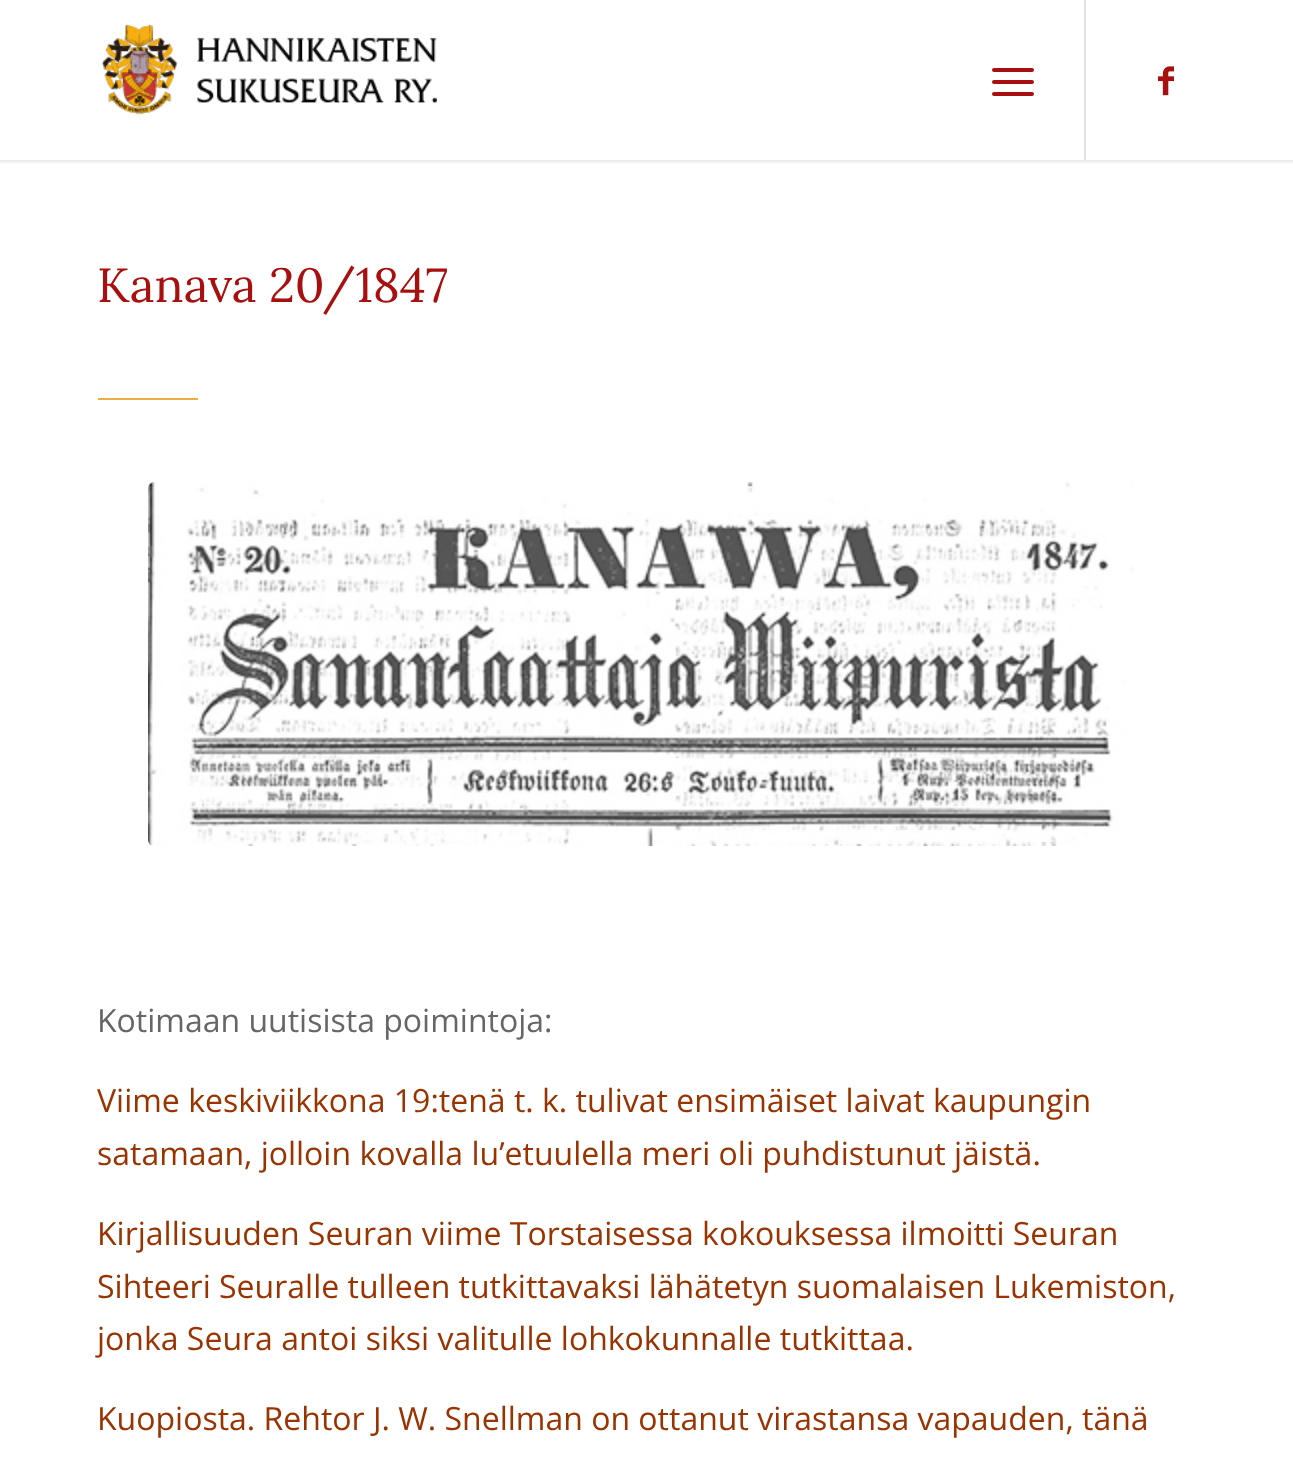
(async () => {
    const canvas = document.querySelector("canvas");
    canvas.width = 1293;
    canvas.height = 1463;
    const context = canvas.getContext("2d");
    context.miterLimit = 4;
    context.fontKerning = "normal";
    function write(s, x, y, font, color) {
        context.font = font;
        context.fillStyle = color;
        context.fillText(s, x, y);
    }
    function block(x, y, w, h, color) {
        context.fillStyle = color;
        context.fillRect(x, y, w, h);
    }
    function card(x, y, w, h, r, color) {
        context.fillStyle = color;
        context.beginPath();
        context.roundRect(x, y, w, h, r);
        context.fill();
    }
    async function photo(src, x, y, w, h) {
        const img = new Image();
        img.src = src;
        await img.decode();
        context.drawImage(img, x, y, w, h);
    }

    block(0, 0, 1293, 1463, "rgb(255, 255, 255)");
    context.save();
    context.beginPath();
    context.rect(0, 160, 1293, 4);
    context.clip();
    context.fillStyle = "rgba(0, 0, 0, 0.1)";
    context.filter = "blur(2px)";
    context.beginPath();
    context.rect(-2, -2, 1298, 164);
    context.fill();
    context.filter = "none";
    context.restore();
    await photo("media/1.png", 101, 24, 336, 91);
    block(1084, 0, 2, 160, "rgb(225, 225, 225)");
    card(992, 80, 42, 4, 2, "rgb(168, 16, 16)");
    card(992, 68, 42, 4, 2, "rgb(168, 16, 16)");
    card(992, 92, 42, 4, 2, "rgb(168, 16, 16)");
    await photo("media/2.png", 1158, 66, 16, 30);
    write("Kanava 20/1847", 97, 302, "48px Lora", "rgb(168, 16, 16)");
    block(98, 398, 100, 2, "rgb(237, 174, 68)");
    await photo("media/3.png", 148, 482, 986, 364);
    write("Kotimaan uutisista poimintoja:", 97, 1032, "32px Open Sans", "rgb(102, 102, 102)");
    write("Viime keskiviikkona 19:tenä t. k. tulivat ensimäiset laivat kaupungin", 97, 1112, "32px Open Sans", "rgb(153, 51, 0)");
    write("satamaan, jolloin kovalla lu’etuulella meri oli puhdistunut jäistä.", 97, 1165, "32px Open Sans", "rgb(153, 51, 0)");
    write("Kirjallisuuden Seuran viime Torstaisessa kokouksessa ilmoitti Seuran", 97, 1245, "32px Open Sans", "rgb(153, 51, 0)");
    write("Sihteeri Seuralle tulleen tutkittavaksi lähätetyn suomalaisen Lukemiston,", 97, 1298, "32px Open Sans", "rgb(153, 51, 0)");
    write("jonka Seura antoi siksi valitulle lohkokunnalle tutkittaa.", 97, 1350, "32px Open Sans", "rgb(153, 51, 0)");
    write("Kuopiosta. Rehtor J. W. Snellman on ottanut virastansa vapauden, tänä", 97, 1430, "32px Open Sans", "rgb(153, 51, 0)");
})();
